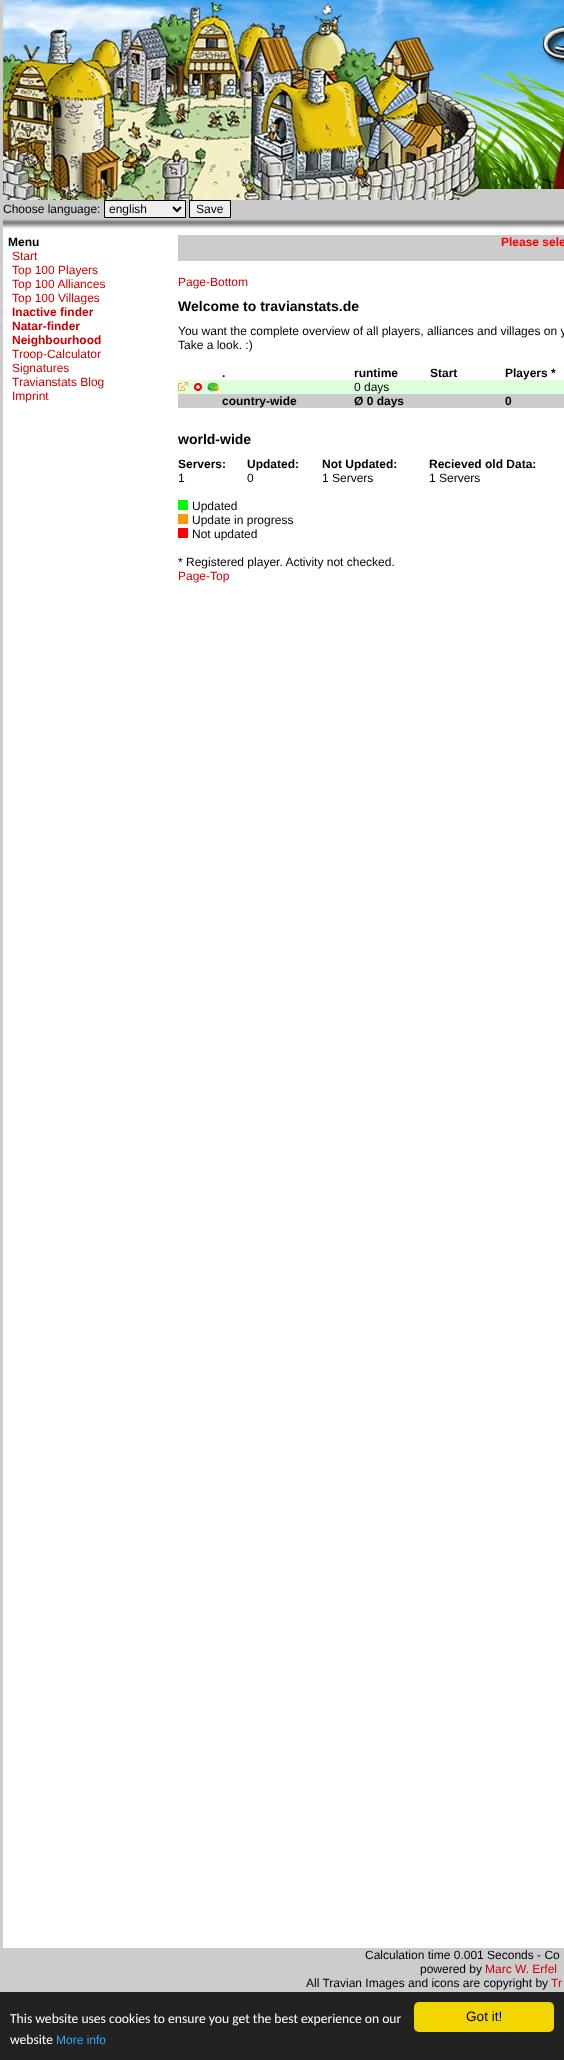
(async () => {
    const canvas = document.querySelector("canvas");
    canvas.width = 564;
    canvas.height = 2060;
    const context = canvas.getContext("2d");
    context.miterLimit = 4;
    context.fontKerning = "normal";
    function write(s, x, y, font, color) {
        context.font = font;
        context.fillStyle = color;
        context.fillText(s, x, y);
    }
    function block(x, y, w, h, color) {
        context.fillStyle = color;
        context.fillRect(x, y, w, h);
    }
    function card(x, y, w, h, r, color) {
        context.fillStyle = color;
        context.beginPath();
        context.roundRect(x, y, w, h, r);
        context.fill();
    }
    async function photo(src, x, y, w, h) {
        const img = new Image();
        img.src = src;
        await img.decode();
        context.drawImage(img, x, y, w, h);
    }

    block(0, 0, 564, 2060, "rgb(255, 255, 255)");
    block(0, 0, 3, 1992, "rgb(204, 204, 204)");
    await photo("media/1.png", 3, 0, 561, 200);
    await photo("media/2.png", 3, 200, 485, 29);
    write("Choose language:", 3, 213, "12px Liberation Sans", "rgb(0, 0, 0)");
    context.fillStyle = "rgb(239, 239, 239)";
    context.beginPath();
    context.rect(104.5, 200.5, 81, 17);
    context.fill();
    context.strokeStyle = "rgb(0, 0, 0)";
    context.stroke();
    context.beginPath();
    context.moveTo(173, 207);
    context.lineTo(177, 211);
    context.lineTo(181, 207);
    context.lineWidth = 2;
    context.stroke();
    write("english", 109, 213, "12px Liberation Sans", "rgb(0, 0, 0)");
    context.fillStyle = "rgb(239, 239, 239)";
    context.beginPath();
    context.rect(189.5, 200.5, 41, 17);
    context.fill();
    context.lineWidth = 1;
    context.stroke();
    write("Save", 196, 213, "12px Liberation Sans", "rgb(0, 0, 0)");
    await photo("media/3.png", 488, 200, 76, 29);
    write("Menu", 8, 246, "bold 12px Liberation Sans", "rgb(0, 0, 0)");
    write("Start", 12, 260, "12px Liberation Sans", "rgb(204, 0, 0)");
    write("Top 100 Players", 12, 274, "12px Liberation Sans", "rgb(204, 0, 0)");
    write("Top 100 Alliances", 12, 288, "12px Liberation Sans", "rgb(204, 0, 0)");
    write("Top 100 Villages", 12, 302, "12px Liberation Sans", "rgb(204, 0, 0)");
    write("Inactive finder", 12, 316, "bold 12px Liberation Sans", "rgb(204, 0, 0)");
    write("Natar-finder", 12, 330, "bold 12px Liberation Sans", "rgb(204, 0, 0)");
    write("Neighbourhood", 12, 344, "bold 12px Liberation Sans", "rgb(204, 0, 0)");
    write("Troop-Calculator", 12, 358, "12px Liberation Sans", "rgb(204, 0, 0)");
    write("Signatures", 12, 372, "12px Liberation Sans", "rgb(204, 0, 0)");
    write("Travianstats Blog", 12, 386, "12px Liberation Sans", "rgb(204, 0, 0)");
    write("Imprint", 12, 400, "12px Liberation Sans", "rgb(204, 0, 0)");
    block(178, 235, 386, 26, "rgb(204, 204, 204)");
    write("Please sele", 501, 246, "bold 12px Liberation Sans", "rgb(255, 0, 0)");
    write("Page-Bottom", 178, 286, "12px Liberation Sans", "rgb(204, 0, 0)");
    write("Welcome to travianstats.de", 178, 311, "bold 14px Liberation Sans", "rgb(0, 0, 0)");
    write("You want the complete overview of all players, alliances and villages on y", 178, 335, "12px Liberation Sans", "rgb(0, 0, 0)");
    write("Take a look. :)", 178, 349, "12px Liberation Sans", "rgb(0, 0, 0)");
    write(".", 222, 377, "bold 12px Liberation Sans", "rgb(0, 0, 0)");
    write("runtime", 354, 377, "bold 12px Liberation Sans", "rgb(0, 0, 0)");
    write("Start", 430, 377, "bold 12px Liberation Sans", "rgb(0, 0, 0)");
    write("Players *", 505, 377, "bold 12px Liberation Sans", "rgb(0, 0, 0)");
    block(178, 380, 386, 14, "rgb(221, 255, 221)");
    await photo("media/4.png", 178, 382, 10, 9);
    await photo("media/5.png", 194, 383, 8, 8);
    await photo("media/6.png", 207, 382, 12, 10);
    write("0 days", 354, 391, "12px Liberation Sans", "rgb(0, 0, 0)");
    block(178, 394, 386, 14, "rgb(204, 204, 204)");
    write("country-wide", 222, 405, "bold 12px Liberation Sans", "rgb(0, 0, 0)");
    write("Ø 0 days", 354, 405, "bold 12px Liberation Sans", "rgb(0, 0, 0)");
    write("0", 505, 405, "bold 12px Liberation Sans", "rgb(0, 0, 0)");
    write("world-wide", 178, 444, "bold 14px Liberation Sans", "rgb(0, 0, 0)");
    write("Servers:", 178, 468, "bold 12px Liberation Sans", "rgb(0, 0, 0)");
    write("Updated:", 247, 468, "bold 12px Liberation Sans", "rgb(0, 0, 0)");
    write("Not Updated:", 322, 468, "bold 12px Liberation Sans", "rgb(0, 0, 0)");
    write("Recieved old Data:", 429, 468, "bold 12px Liberation Sans", "rgb(0, 0, 0)");
    write("1", 178, 482, "12px Liberation Sans", "rgb(0, 0, 0)");
    write("0", 247, 482, "12px Liberation Sans", "rgb(0, 0, 0)");
    write("1 Servers", 322, 482, "12px Liberation Sans", "rgb(0, 0, 0)");
    write("1 Servers", 429, 482, "12px Liberation Sans", "rgb(0, 0, 0)");
    block(178, 500, 10, 10, "rgb(0, 255, 0)");
    write("Updated", 192, 510, "12px Liberation Sans", "rgb(0, 0, 0)");
    block(178, 514, 10, 10, "rgb(255, 153, 0)");
    write("Update in progress", 192, 524, "12px Liberation Sans", "rgb(0, 0, 0)");
    block(178, 528, 10, 10, "rgb(255, 0, 0)");
    write("Not updated", 192, 538, "12px Liberation Sans", "rgb(0, 0, 0)");
    write("* Registered player. Activity not checked.", 178, 566, "12px Liberation Sans", "rgb(0, 0, 0)");
    write("Page-Top", 178, 580, "12px Liberation Sans", "rgb(204, 0, 0)");
    block(3, 1948, 561, 44, "rgb(204, 204, 204)");
    write("Calculation time 0.001 Seconds - Co", 365, 1959, "12px Liberation Sans", "rgb(0, 0, 0)");
    write("powered by", 420, 1973, "12px Liberation Sans", "rgb(0, 0, 0)");
    write("Marc W. Erfel", 485, 1973, "12px Liberation Sans", "rgb(204, 0, 0)");
    write("All Travian Images and icons are copyright by", 306, 1987, "12px Liberation Sans", "rgb(0, 0, 0)");
    write("Tr", 551, 1987, "12px Liberation Sans", "rgb(204, 0, 0)");
    block(0, 1992, 564, 68, "rgb(34, 34, 34)");
    write("This website uses cookies to ensure you get the best experience on our", 10, 2023, "13.6px Carlito", "rgb(255, 255, 255)");
    write("website", 10, 2044, "13.6px Carlito", "rgb(255, 255, 255)");
    write("More info", 56, 2044, "12px Liberation Sans", "rgb(49, 168, 240)");
    card(414, 2002, 140, 30, 5, "rgb(241, 214, 0)");
    write("Got it!", 466, 2021, "13.6px Liberation Sans", "rgb(0, 0, 0)");
})();
